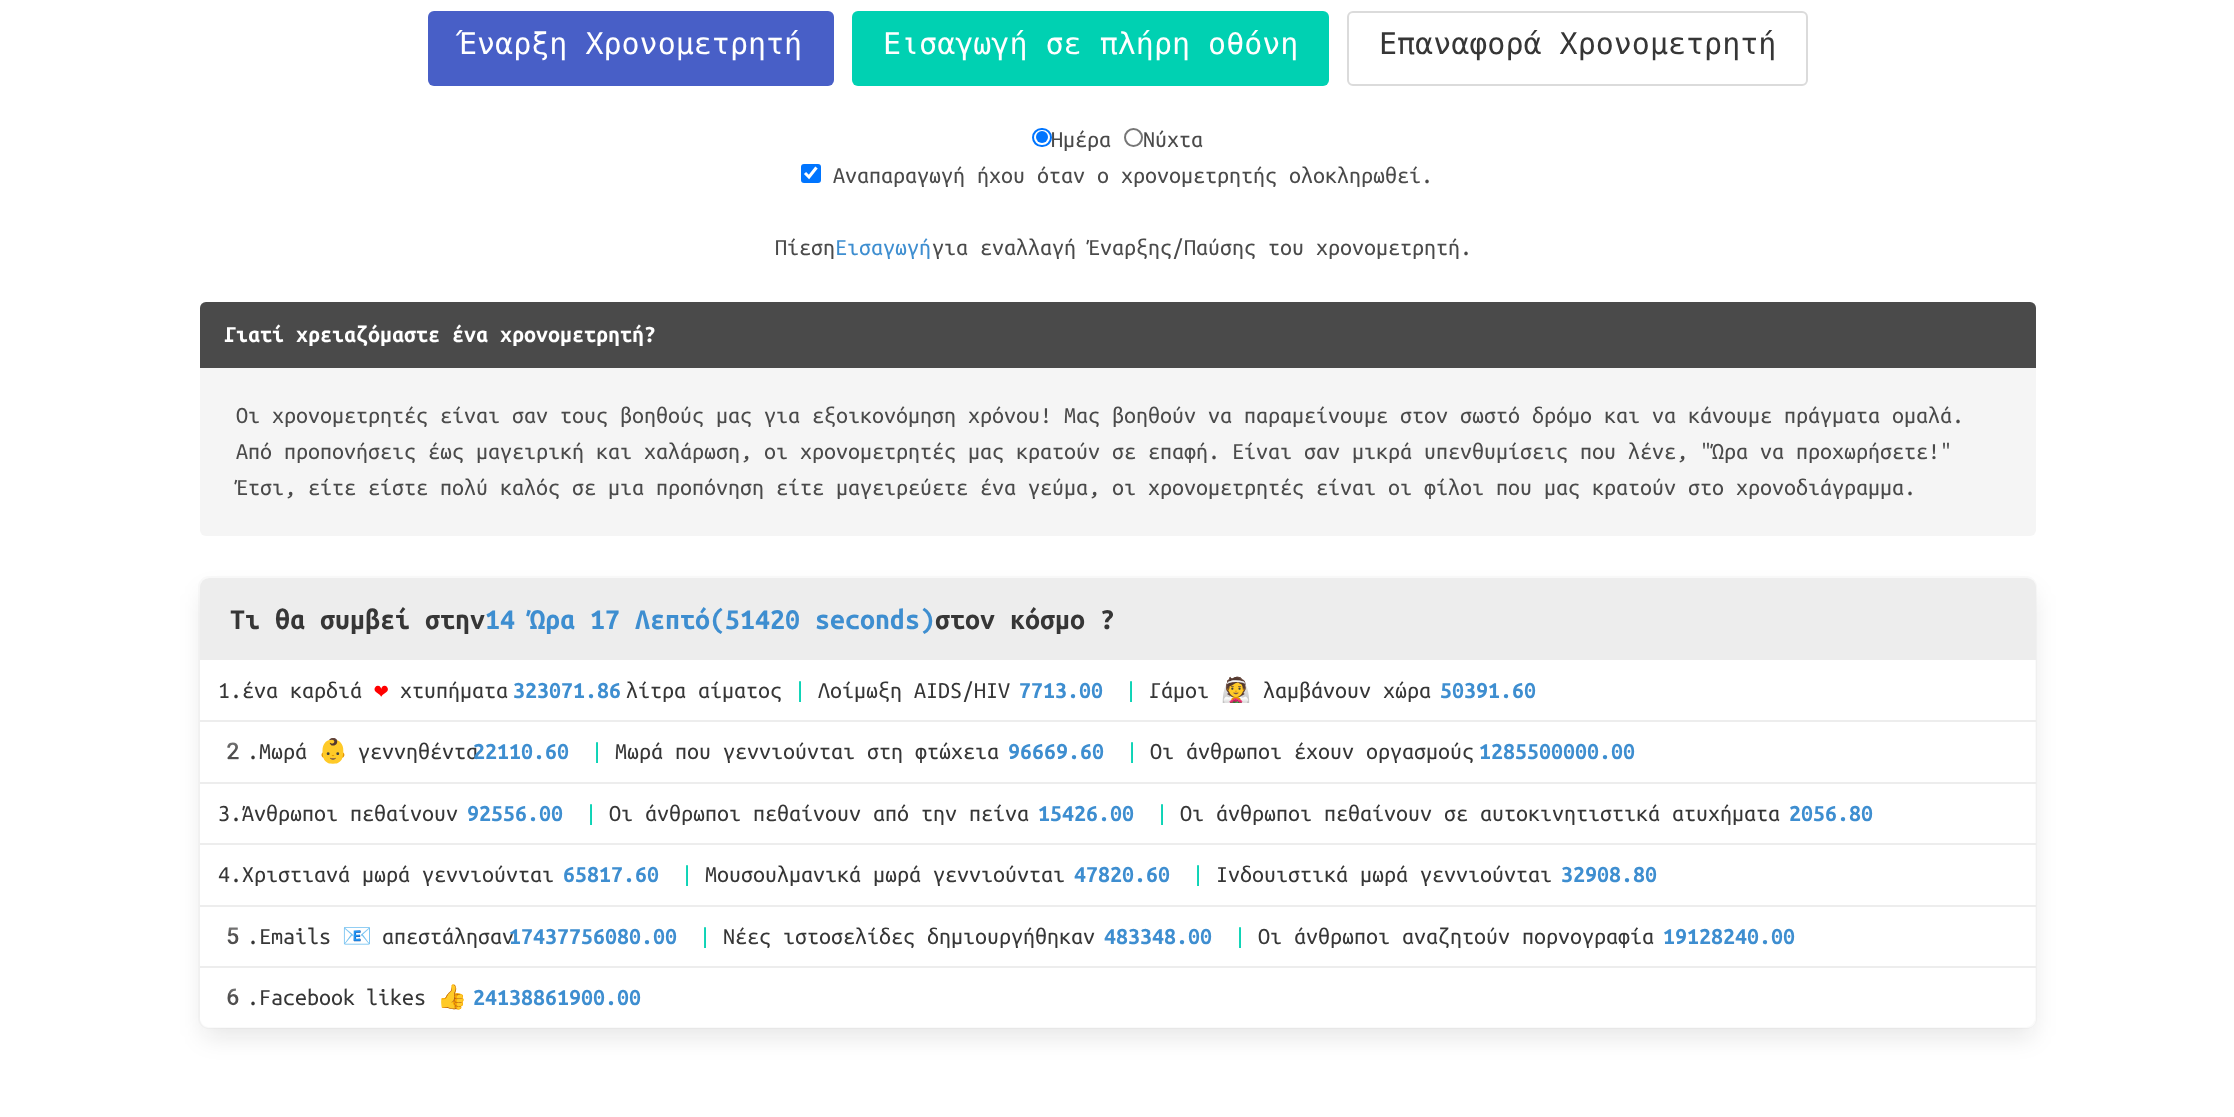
(async () => {
    const canvas = document.querySelector("canvas");
    canvas.width = 2234;
    canvas.height = 1117;
    const context = canvas.getContext("2d");
    context.miterLimit = 4;
    context.fontKerning = "normal";
    function write(s, x, y, font, color) {
        context.font = font;
        context.fillStyle = color;
        context.fillText(s, x, y);
    }
    function block(x, y, w, h, color) {
        context.fillStyle = color;
        context.fillRect(x, y, w, h);
    }
    function card(x, y, w, h, r, color) {
        context.fillStyle = color;
        context.beginPath();
        context.roundRect(x, y, w, h, r);
        context.fill();
    }

    block(0, 0, 2234, 1117, "rgb(255, 255, 255)");
    card(428, 11, 406, 75, 6, "rgb(72, 95, 199)");
    write("Έναρξη Χρονομετρητή", 459, 54, "30px DejaVu Sans Mono", "rgb(255, 255, 255)");
    card(852, 11, 477, 75, 6, "rgb(0, 209, 178)");
    write("Εισαγωγή σε πλήρη οθόνη", 883, 54, "30px DejaVu Sans Mono", "rgb(255, 255, 255)");
    context.beginPath();
    context.roundRect(1348, 12, 459, 73, 5);
    context.strokeStyle = "rgb(219, 219, 219)";
    context.lineWidth = 2;
    context.stroke();
    write("Επαναφορά Χρονομετρητή", 1379, 54, "30px DejaVu Sans Mono", "rgb(54, 54, 54)");
    context.beginPath();
    context.roundRect(1033, 129, 18, 17, 8.5);
    context.strokeStyle = "rgb(0, 117, 255)";
    context.stroke();
    context.fillStyle = "rgb(0, 117, 255)";
    context.beginPath();
    context.arc(1042, 137, 6, 0, Math.PI * 2);
    context.fill();
    write("Ημέρα", 1051, 147, "24px Ubuntu Mono", "rgb(74, 74, 74)");
    context.beginPath();
    context.arc(1133.5, 137.5, 8.5, 0, Math.PI * 2);
    context.strokeStyle = "rgb(118, 118, 118)";
    context.stroke();
    write("Νύχτα", 1143, 147, "24px Ubuntu Mono", "rgb(74, 74, 74)");
    card(801, 164, 20, 19, 3, "rgb(0, 117, 255)");
    context.beginPath();
    context.moveTo(805, 173);
    context.lineTo(809, 177);
    context.lineTo(816.5, 167.5);
    context.strokeStyle = "rgb(255, 255, 255)";
    context.lineWidth = 3.1;
    context.stroke();
    write("Αναπαραγωγή ήχου όταν ο χρονομετρητής ολοκληρωθεί.", 833, 183, "24px Ubuntu Mono", "rgb(74, 74, 74)");
    write("Πίεση", 775, 255, "24px Ubuntu Mono", "rgb(74, 74, 74)");
    write("Εισαγωγή", 835, 255, "24px Ubuntu Mono", "rgb(62, 142, 208)");
    write("για εναλλαγή Έναρξης/Παύσης του χρονομετρητή.", 932, 255, "24px Ubuntu Mono", "rgb(74, 74, 74)");
    card(200, 302, 1836, 234, 6, "rgb(245, 245, 245)");
    context.fillStyle = "rgb(74, 74, 74)";
    context.beginPath();
    context.roundRect(200, 302, 1836, 66, [6, 6, 0, 0]);
    context.fill();
    write("Γιατί χρειαζόμαστε ένα χρονομετρητή?", 224, 342, "bold 24px Ubuntu Mono", "rgb(255, 255, 255)");
    write("Οι χρονομετρητές είναι σαν τους βοηθούς μας για εξοικονόμηση χρόνου! Μας βοηθούν να παραμείνουμε στον σωστό δρόμο και να κάνουμε πράγματα ομαλά.", 236, 423, "24px Ubuntu Mono", "rgb(74, 74, 74)");
    write("Από προπονήσεις έως μαγειρική και χαλάρωση, οι χρονομετρητές μας κρατούν σε επαφή. Είναι σαν μικρά υπενθυμίσεις που λένε, \"Ώρα να προχωρήσετε!\"", 236, 459, "24px Ubuntu Mono", "rgb(74, 74, 74)");
    write("Έτσι, είτε είστε πολύ καλός σε μια προπόνηση είτε μαγειρεύετε ένα γεύμα, οι χρονομετρητές είναι οι φίλοι που μας κρατούν στο χρονοδιάγραμμα.", 236, 495, "24px Ubuntu Mono", "rgb(74, 74, 74)");
    context.beginPath();
    context.roundRect(199, 577, 1837, 451, 10);
    context.strokeStyle = "rgb(250, 250, 250)";
    context.lineWidth = 2;
    context.stroke();
    context.save();
    context.beginPath();
    context.moveTo(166, 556);
    context.lineTo(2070, 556);
    context.lineTo(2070, 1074);
    context.lineTo(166, 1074);
    context.closePath();
    context.moveTo(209, 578);
    context.lineTo(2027, 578);
    context.bezierCurveTo(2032, 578, 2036, 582, 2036, 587);
    context.lineTo(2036, 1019);
    context.bezierCurveTo(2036, 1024, 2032, 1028, 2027, 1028);
    context.lineTo(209, 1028);
    context.bezierCurveTo(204, 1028, 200, 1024, 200, 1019);
    context.lineTo(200, 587);
    context.bezierCurveTo(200, 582, 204, 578, 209, 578);
    context.closePath();
    context.clip("evenodd");
    context.fillStyle = "rgba(10, 10, 10, 0.1)";
    context.filter = "blur(12px)";
    context.beginPath();
    context.roundRect(203, 593, 1830, 444, 6);
    context.fill();
    context.filter = "none";
    context.restore();
    context.fillStyle = "rgb(237, 237, 237)";
    context.beginPath();
    context.roundRect(200, 578, 1836, 82, [9, 9, 0, 0]);
    context.fill();
    write("Τι θα συμβεί στην", 230, 629, "bold 30px Ubuntu Mono", "rgb(54, 54, 54)");
    write("14 Ώρα 17 Λεπτό(51420 seconds)", 485, 629, "bold 30px Ubuntu Mono", "rgb(62, 142, 208)");
    write("στον κόσμο ?", 935, 629, "bold 30px Ubuntu Mono", "rgb(54, 54, 54)");
    block(200, 720, 1836, 2, "rgb(237, 237, 237)");
    write("1.ένα καρδιά", 218, 698, "24px Ubuntu Mono", "rgb(54, 54, 54)");
    write("❤", 374, 698, "24px DejaVu Sans Mono", "rgb(255, 0, 0)");
    write("χτυπήματα", 400, 698, "24px Ubuntu Mono", "rgb(54, 54, 54)");
    write("323071.86", 513, 698, "bold 24px Ubuntu Mono", "rgb(62, 142, 208)");
    write("λίτρα αίματος", 626, 698, "24px Ubuntu Mono", "rgb(54, 54, 54)");
    write("|", 794, 698, "24px Ubuntu Mono", "rgb(0, 209, 178)");
    write("Λοίμωξη AIDS/HIV", 818, 698, "24px Ubuntu Mono", "rgb(54, 54, 54)");
    write("7713.00", 1019, 698, "bold 24px Ubuntu Mono", "rgb(62, 142, 208)");
    write("|", 1125, 698, "24px Ubuntu Mono", "rgb(0, 209, 178)");
    write("Γάμοι", 1149, 698, "24px Ubuntu Mono", "rgb(54, 54, 54)");
    write("👰", 1221, 698, "24px Noto Color Emoji", "rgb(54, 54, 54)");
    write("λαμβάνουν χώρα", 1263, 698, "24px Ubuntu Mono", "rgb(54, 54, 54)");
    write("50391.60", 1440, 698, "bold 24px Ubuntu Mono", "rgb(62, 142, 208)");
    block(200, 782, 1836, 2, "rgb(237, 237, 237)");
    write("2", 218, 759, "24px Noto Color Emoji", "rgb(54, 54, 54)");
    write(".Μωρά", 247, 759, "24px Ubuntu Mono", "rgb(54, 54, 54)");
    write("👶", 318, 759, "24px Noto Color Emoji", "rgb(54, 54, 54)");
    write("γεννηθέντα", 358, 759, "24px Ubuntu Mono", "rgb(54, 54, 54)");
    write("22110.60", 473, 759, "bold 24px Ubuntu Mono", "rgb(62, 142, 208)");
    write("|", 591, 759, "24px Ubuntu Mono", "rgb(0, 209, 178)");
    write("Μωρά που γεννιούνται στη φτώχεια", 615, 759, "24px Ubuntu Mono", "rgb(54, 54, 54)");
    write("96669.60", 1008, 759, "bold 24px Ubuntu Mono", "rgb(62, 142, 208)");
    write("|", 1126, 759, "24px Ubuntu Mono", "rgb(0, 209, 178)");
    write("Οι άνθρωποι έχουν οργασμούς", 1150, 759, "24px Ubuntu Mono", "rgb(54, 54, 54)");
    write("1285500000.00", 1479, 759, "bold 24px Ubuntu Mono", "rgb(62, 142, 208)");
    block(200, 843, 1836, 2, "rgb(237, 237, 237)");
    write("3.Άνθρωποι πεθαίνουν", 218, 821, "24px Ubuntu Mono", "rgb(54, 54, 54)");
    write("92556.00", 467, 821, "bold 24px Ubuntu Mono", "rgb(62, 142, 208)");
    write("|", 585, 821, "24px Ubuntu Mono", "rgb(0, 209, 178)");
    write("Οι άνθρωποι πεθαίνουν από την πείνα", 609, 821, "24px Ubuntu Mono", "rgb(54, 54, 54)");
    write("15426.00", 1038, 821, "bold 24px Ubuntu Mono", "rgb(62, 142, 208)");
    write("|", 1156, 821, "24px Ubuntu Mono", "rgb(0, 209, 178)");
    write("Οι άνθρωποι πεθαίνουν σε αυτοκινητιστικά ατυχήματα", 1180, 821, "24px Ubuntu Mono", "rgb(54, 54, 54)");
    write("2056.80", 1789, 821, "bold 24px Ubuntu Mono", "rgb(62, 142, 208)");
    block(200, 905, 1836, 2, "rgb(237, 237, 237)");
    write("4.Χριστιανά μωρά γεννιούνται", 218, 882, "24px Ubuntu Mono", "rgb(54, 54, 54)");
    write("65817.60", 563, 882, "bold 24px Ubuntu Mono", "rgb(62, 142, 208)");
    write("|", 681, 882, "24px Ubuntu Mono", "rgb(0, 209, 178)");
    write("Μουσουλμανικά μωρά γεννιούνται", 705, 882, "24px Ubuntu Mono", "rgb(54, 54, 54)");
    write("47820.60", 1074, 882, "bold 24px Ubuntu Mono", "rgb(62, 142, 208)");
    write("|", 1192, 882, "24px Ubuntu Mono", "rgb(0, 209, 178)");
    write("Ινδουιστικά μωρά γεννιούνται", 1216, 882, "24px Ubuntu Mono", "rgb(54, 54, 54)");
    write("32908.80", 1561, 882, "bold 24px Ubuntu Mono", "rgb(62, 142, 208)");
    block(200, 966, 1836, 2, "rgb(237, 237, 237)");
    write("5", 218, 944, "24px Noto Color Emoji", "rgb(54, 54, 54)");
    write(".Emails", 247, 944, "24px Ubuntu Mono", "rgb(54, 54, 54)");
    write("📧", 342, 944, "24px Noto Color Emoji", "rgb(54, 54, 54)");
    write("απεστάλησαν", 382, 944, "24px Ubuntu Mono", "rgb(54, 54, 54)");
    write("17437756080.00", 509, 944, "bold 24px Ubuntu Mono", "rgb(62, 142, 208)");
    write("|", 699, 944, "24px Ubuntu Mono", "rgb(0, 209, 178)");
    write("Νέες ιστοσελίδες δημιουργήθηκαν", 723, 944, "24px Ubuntu Mono", "rgb(54, 54, 54)");
    write("483348.00", 1104, 944, "bold 24px Ubuntu Mono", "rgb(62, 142, 208)");
    write("|", 1234, 944, "24px Ubuntu Mono", "rgb(0, 209, 178)");
    write("Οι άνθρωποι αναζητούν πορνογραφία", 1258, 944, "24px Ubuntu Mono", "rgb(54, 54, 54)");
    write("19128240.00", 1663, 944, "bold 24px Ubuntu Mono", "rgb(62, 142, 208)");
    write("6", 218, 1005, "24px Noto Color Emoji", "rgb(54, 54, 54)");
    context.wordSpacing = "-1px";
    write(".Facebook likes", 247, 1005, "24px Ubuntu Mono", "rgb(54, 54, 54)");
    context.wordSpacing = "0px";
    write("👍", 437, 1005, "24px Noto Color Emoji", "rgb(54, 54, 54)");
    write("24138861900.00", 473, 1005, "bold 24px Ubuntu Mono", "rgb(62, 142, 208)");
})();
